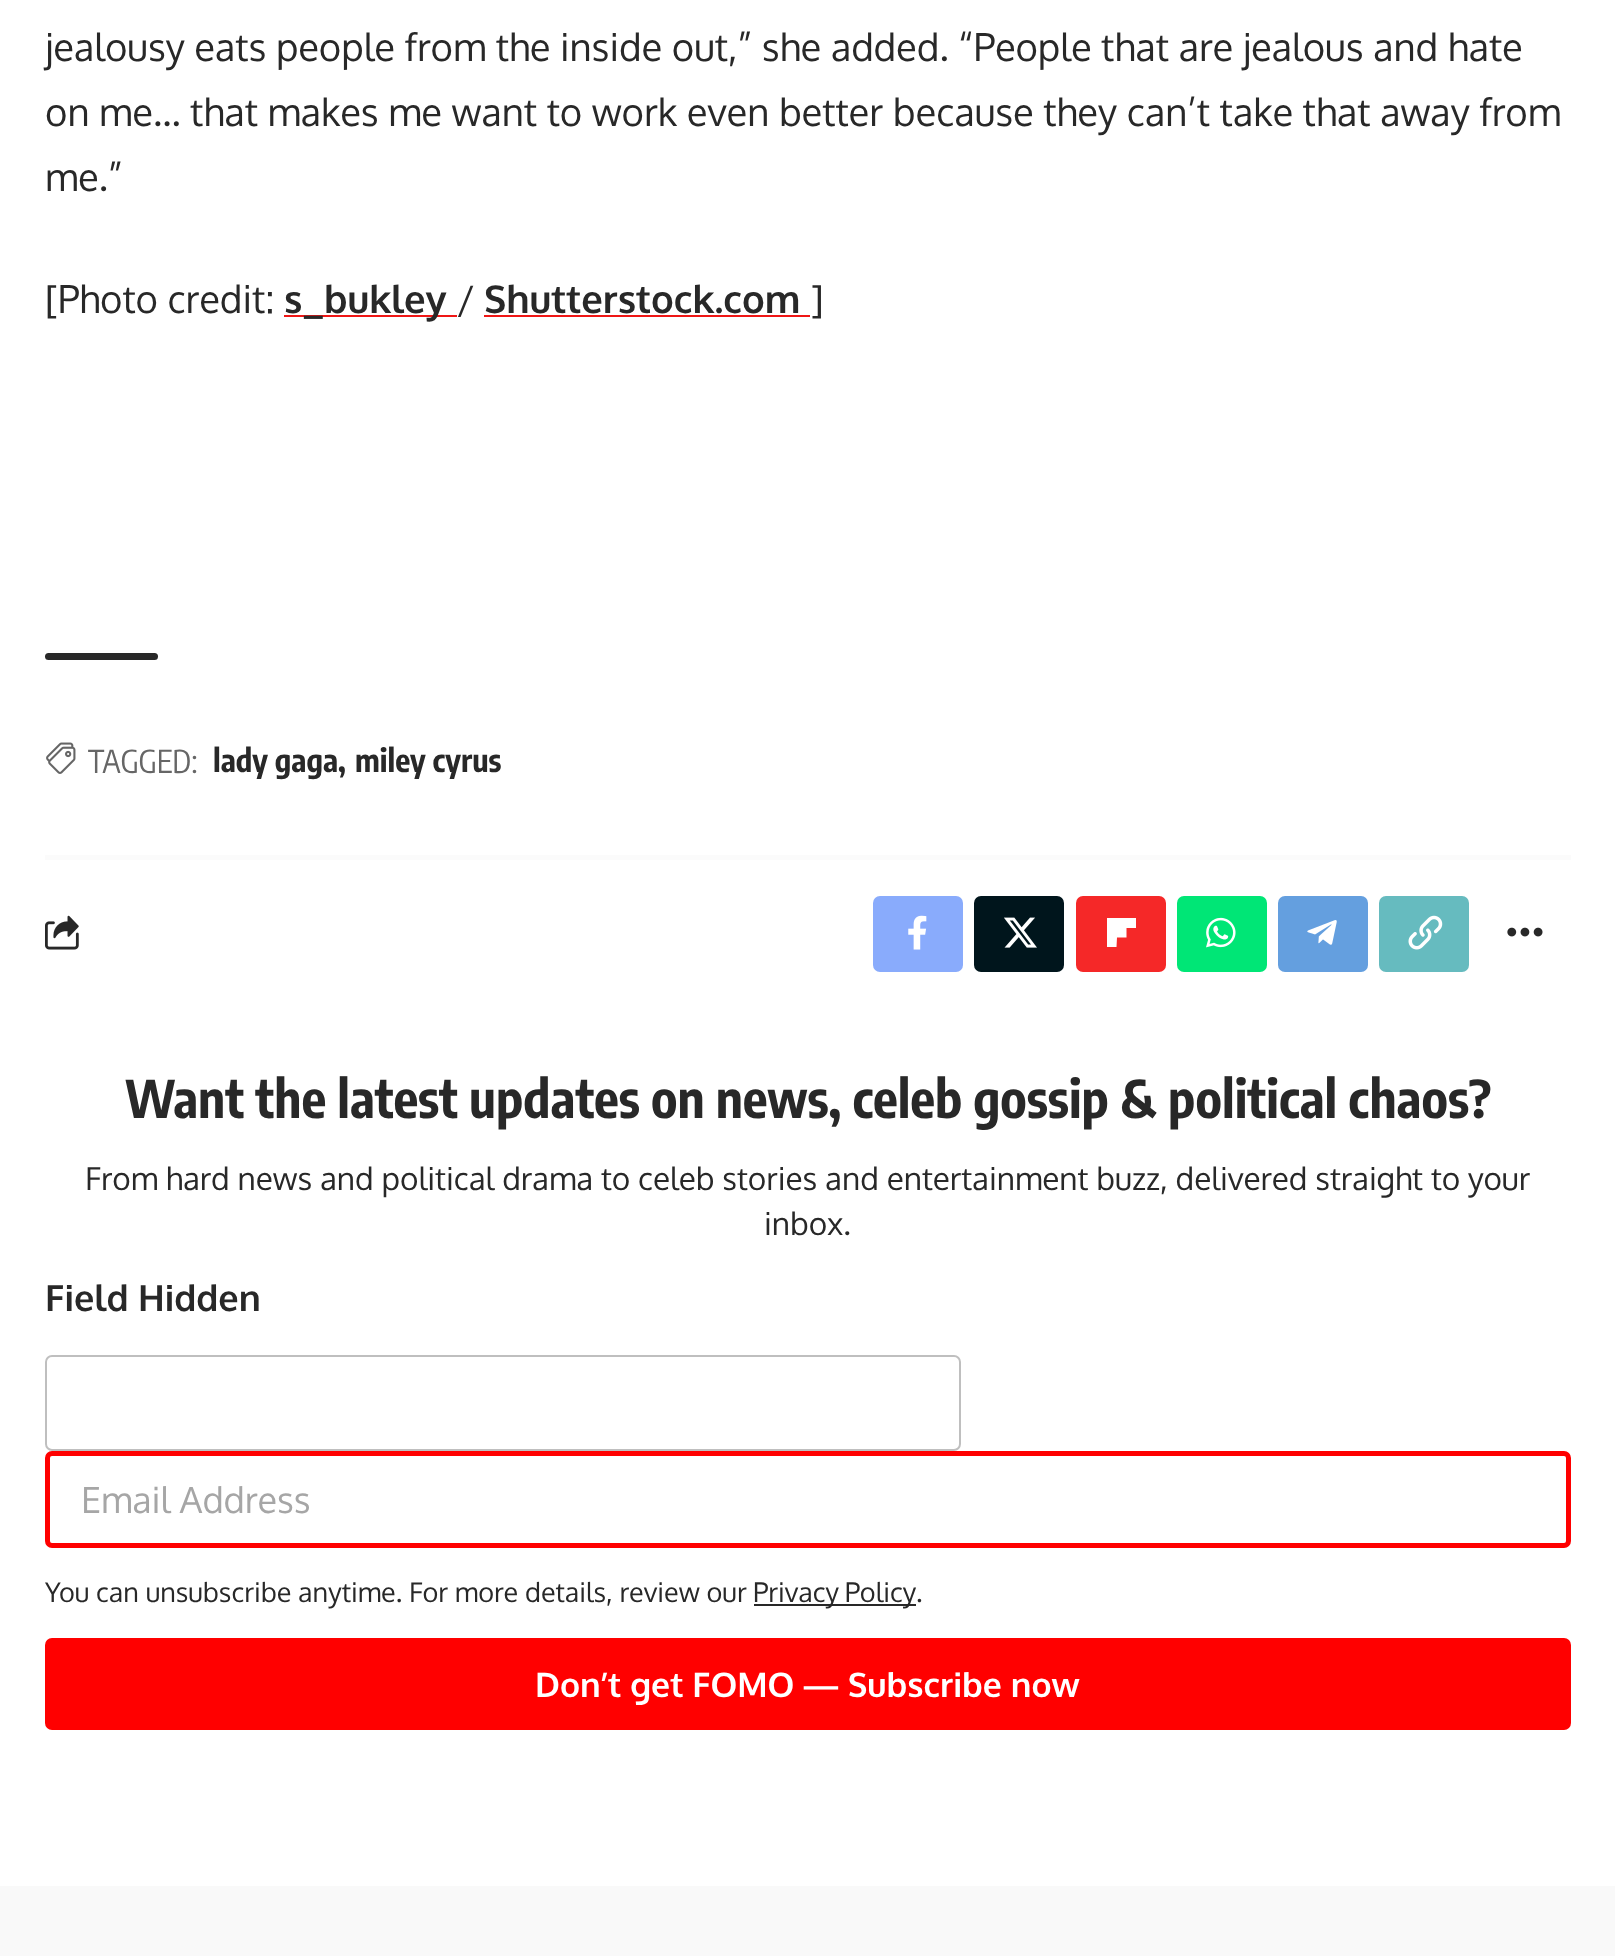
(async () => {
    const canvas = document.querySelector("canvas");
    canvas.width = 1615;
    canvas.height = 1956;
    const context = canvas.getContext("2d");
    context.miterLimit = 4;
    context.fontKerning = "normal";
    function write(s, x, y, font, color) {
        context.font = font;
        context.fillStyle = color;
        context.fillText(s, x, y);
    }
    function block(x, y, w, h, color) {
        context.fillStyle = color;
        context.fillRect(x, y, w, h);
    }
    function card(x, y, w, h, r, color) {
        context.fillStyle = color;
        context.beginPath();
        context.roundRect(x, y, w, h, r);
        context.fill();
    }
    async function photo(src, x, y, w, h) {
        const img = new Image();
        img.src = src;
        await img.decode();
        context.drawImage(img, x, y, w, h);
    }

    block(0, 0, 1615, 1956, "rgb(255, 255, 255)");
    write("jealousy eats people from the inside out,” she added. “People that are jealous and hate", 45, 61, "38.25px Oxygen", "rgb(40, 40, 40)");
    write("on me… that makes me want to work even better because they can’t take that away from", 45, 126, "38.25px Oxygen", "rgb(40, 40, 40)");
    write("me.”", 45, 191, "38.25px Oxygen", "rgb(40, 40, 40)");
    write("[Photo credit:", 45, 313, "38.25px Oxygen", "rgb(40, 40, 40)");
    block(284, 315, 173, 2, "rgb(239, 22, 21)");
    write("s_bukley", 284, 313, "bold 38.25px Oxygen", "rgb(40, 40, 40)");
    write("/", 457, 313, "38.25px Oxygen", "rgb(40, 40, 40)");
    write("Shutterstock.com", 484, 313, "bold 38.25px Oxygen", "rgb(40, 40, 40)");
    block(484, 315, 326, 2, "rgb(239, 22, 21)");
    write("]", 811, 313, "38.25px Oxygen", "rgb(40, 40, 40)");
    card(45, 653, 113, 7, 3.5, "rgb(40, 40, 40)");
    await photo("media/1.png", 46, 742, 30, 32);
    write("TAGGED:", 88, 773, "31.5px Encode Sans Condensed", "rgb(102, 102, 102)");
    write("lady gaga,", 213, 772, "bold 31.5px Encode Sans Condensed", "rgb(40, 40, 40)");
    write("miley cyrus", 355, 772, "bold 31.5px Encode Sans Condensed", "rgb(40, 40, 40)");
    block(45, 855, 1526, 5, "rgb(251, 251, 251)");
    await photo("media/2.png", 45, 915, 34, 35);
    card(873, 896, 90, 76, 7, "rgb(137, 171, 252)");
    await photo("media/3.png", 908, 915, 19, 35);
    card(974, 896, 90, 76, 7, "rgb(0, 21, 28)");
    await photo("media/4.png", 1004, 917, 33, 31);
    card(1076, 896, 90, 76, 7, "rgb(245, 40, 40)");
    context.fillStyle = "rgb(255, 255, 255)";
    context.beginPath();
    context.moveTo(1121.5, 918);
    context.lineTo(1136, 918);
    context.lineTo(1136, 928);
    context.lineTo(1126.5, 928);
    context.lineTo(1126.5, 937.5);
    context.lineTo(1117, 937.5);
    context.lineTo(1116.5, 947);
    context.lineTo(1107, 947);
    context.lineTo(1107, 918);
    context.closePath();
    context.fill();
    card(1177, 896, 90, 76, 7, "rgb(0, 230, 118)");
    await photo("media/5.png", 1206, 917, 30, 31);
    card(1278, 896, 90, 76, 7, "rgb(100, 159, 223)");
    await photo("media/6.png", 1307, 920, 30, 25);
    card(1379, 896, 90, 76, 7, "rgb(102, 187, 191)");
    await photo("media/7.png", 1408, 915, 35, 35);
    await photo("media/8.png", 1507, 927, 36, 10);
    write("Want the latest updates on news, celeb gossip & political chaos?", 125, 1118, "bold 51.75px Encode Sans Condensed", "rgb(40, 40, 40)");
    write("From hard news and political drama to celeb stories and entertainment buzz, delivered straight to your", 85, 1190, "31.5px Oxygen", "rgb(40, 40, 40)");
    write("inbox.", 764, 1235, "31.5px Oxygen", "rgb(40, 40, 40)");
    write("Field Hidden", 45, 1311, "bold 36px Oxygen", "rgb(40, 40, 40)");
    context.beginPath();
    context.roundRect(46, 1356, 914, 94, 6);
    context.strokeStyle = "rgb(191, 191, 191)";
    context.lineWidth = 2;
    context.stroke();
    context.beginPath();
    context.roundRect(47.5, 1453.5, 1521, 92, 4.5);
    context.strokeStyle = "rgb(255, 0, 0)";
    context.lineWidth = 5;
    context.stroke();
    write("Email Address", 81, 1513, "36px Oxygen", "rgb(166, 166, 166)");
    write("You can unsubscribe anytime. For more details, review our", 45, 1602, "27px Oxygen", "rgb(40, 40, 40)");
    block(754, 1604, 162, 2, "rgb(40, 40, 40)");
    context.wordSpacing = "-1px";
    write("Privacy Policy", 753, 1602, "27px Oxygen", "rgb(40, 40, 40)");
    context.wordSpacing = "0px";
    write(".", 916, 1602, "27px Oxygen", "rgb(40, 40, 40)");
    card(45, 1638, 1526, 92, 7, "rgb(255, 0, 0)");
    write("Don’t get FOMO — Subscribe now", 535, 1697, "bold 33.75px Oxygen", "rgb(255, 255, 255)");
    block(0, 1886, 1615, 70, "rgb(249, 249, 249)");
})();
